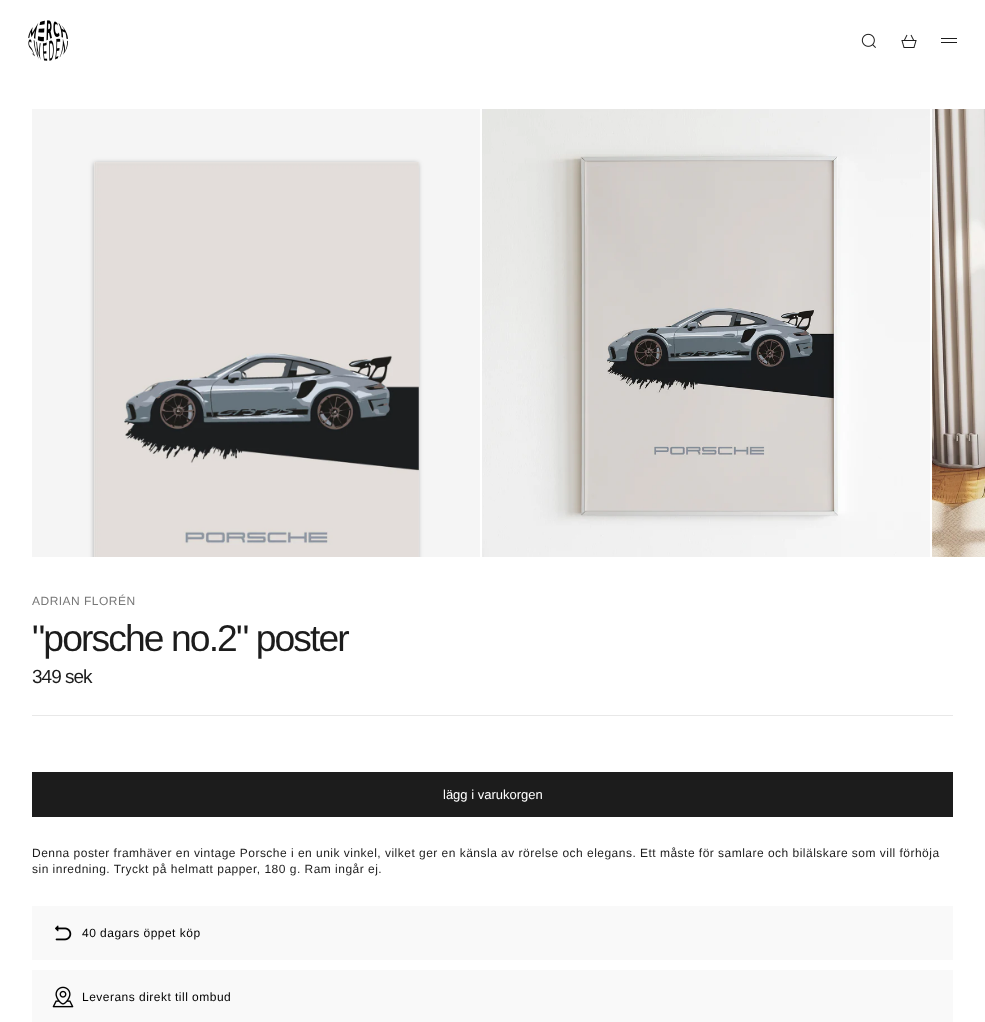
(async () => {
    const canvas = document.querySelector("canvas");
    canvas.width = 985;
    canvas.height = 1022;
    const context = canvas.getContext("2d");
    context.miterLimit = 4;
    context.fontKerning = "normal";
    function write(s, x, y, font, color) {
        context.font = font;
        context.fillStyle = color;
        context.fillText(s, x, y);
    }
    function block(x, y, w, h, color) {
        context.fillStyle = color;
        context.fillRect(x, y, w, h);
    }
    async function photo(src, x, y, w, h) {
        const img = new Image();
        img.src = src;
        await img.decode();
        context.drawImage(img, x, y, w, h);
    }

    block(0, 0, 985, 1022, "rgb(255, 255, 255)");
    await photo("media/1.png", 28, 20, 40, 41);
    await photo("media/2.png", 861, 33, 15, 15);
    await photo("media/3.png", 901, 34, 16, 14);
    block(941, 38, 16, 1, "rgb(28, 28, 28)");
    block(941, 42, 16, 1, "rgb(28, 28, 28)");
    block(32, 109, 448, 448, "rgb(245, 245, 245)");
    context.save();
    context.beginPath();
    context.rect(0, 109, 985, 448);
    context.clip();
    context.fillStyle = "rgba(0, 0, 0, 0.3)";
    context.filter = "blur(2.5px)";
    context.beginPath();
    context.rect(94, 163, 324, 454);
    context.fill();
    context.filter = "none";
    context.restore();
    await photo("media/4.png", 94, 162, 325, 395);
    await photo("media/5.png", 482, 109, 448, 448);
    await photo("media/6.png", 932, 109, 53, 448);
    context.letterSpacing = "0.48px";
    write("ADRIAN FLORÉN", 32, 605, "12px Liberation Sans", "rgb(119, 119, 119)");
    context.letterSpacing = "-1.9px";
    write("\"porsche no.2\" poster", 32, 651, "37.25px Liberation Sans", "rgb(28, 28, 28)");
    context.letterSpacing = "-1px";
    write("349 sek", 32, 683, "19px Liberation Sans", "rgb(28, 28, 28)");
    block(32, 715, 921, 1, "rgb(232, 232, 232)");
    block(32, 772, 921, 45, "rgb(28, 28, 28)");
    context.letterSpacing = "0px";
    write("lägg i varukorgen", 443, 799, "13px Liberation Sans", "rgb(255, 255, 255)");
    context.letterSpacing = "0.48px";
    write("Denna poster framhäver en vintage Porsche i en unik vinkel, vilket ger en känsla av rörelse och elegans. Ett måste för samlare och bilälskare som vill förhöja", 32, 857, "12px Liberation Sans", "rgb(28, 28, 28)");
    write("sin inredning. Tryckt på helmatt papper, 180 g. Ram ingår ej.", 32, 873, "12px Liberation Sans", "rgb(28, 28, 28)");
    block(32, 906, 921, 54, "rgb(249, 249, 249)");
    await photo("media/7.png", 55, 925, 17, 16);
    write("40 dagars öppet köp", 82, 937, "12px Liberation Sans", "rgb(0, 0, 0)");
    block(32, 970, 921, 52, "rgb(249, 249, 249)");
    await photo("media/8.png", 52, 986, 22, 22);
    write("Leverans direkt till ombud", 82, 1001, "12px Liberation Sans", "rgb(0, 0, 0)");
})();
